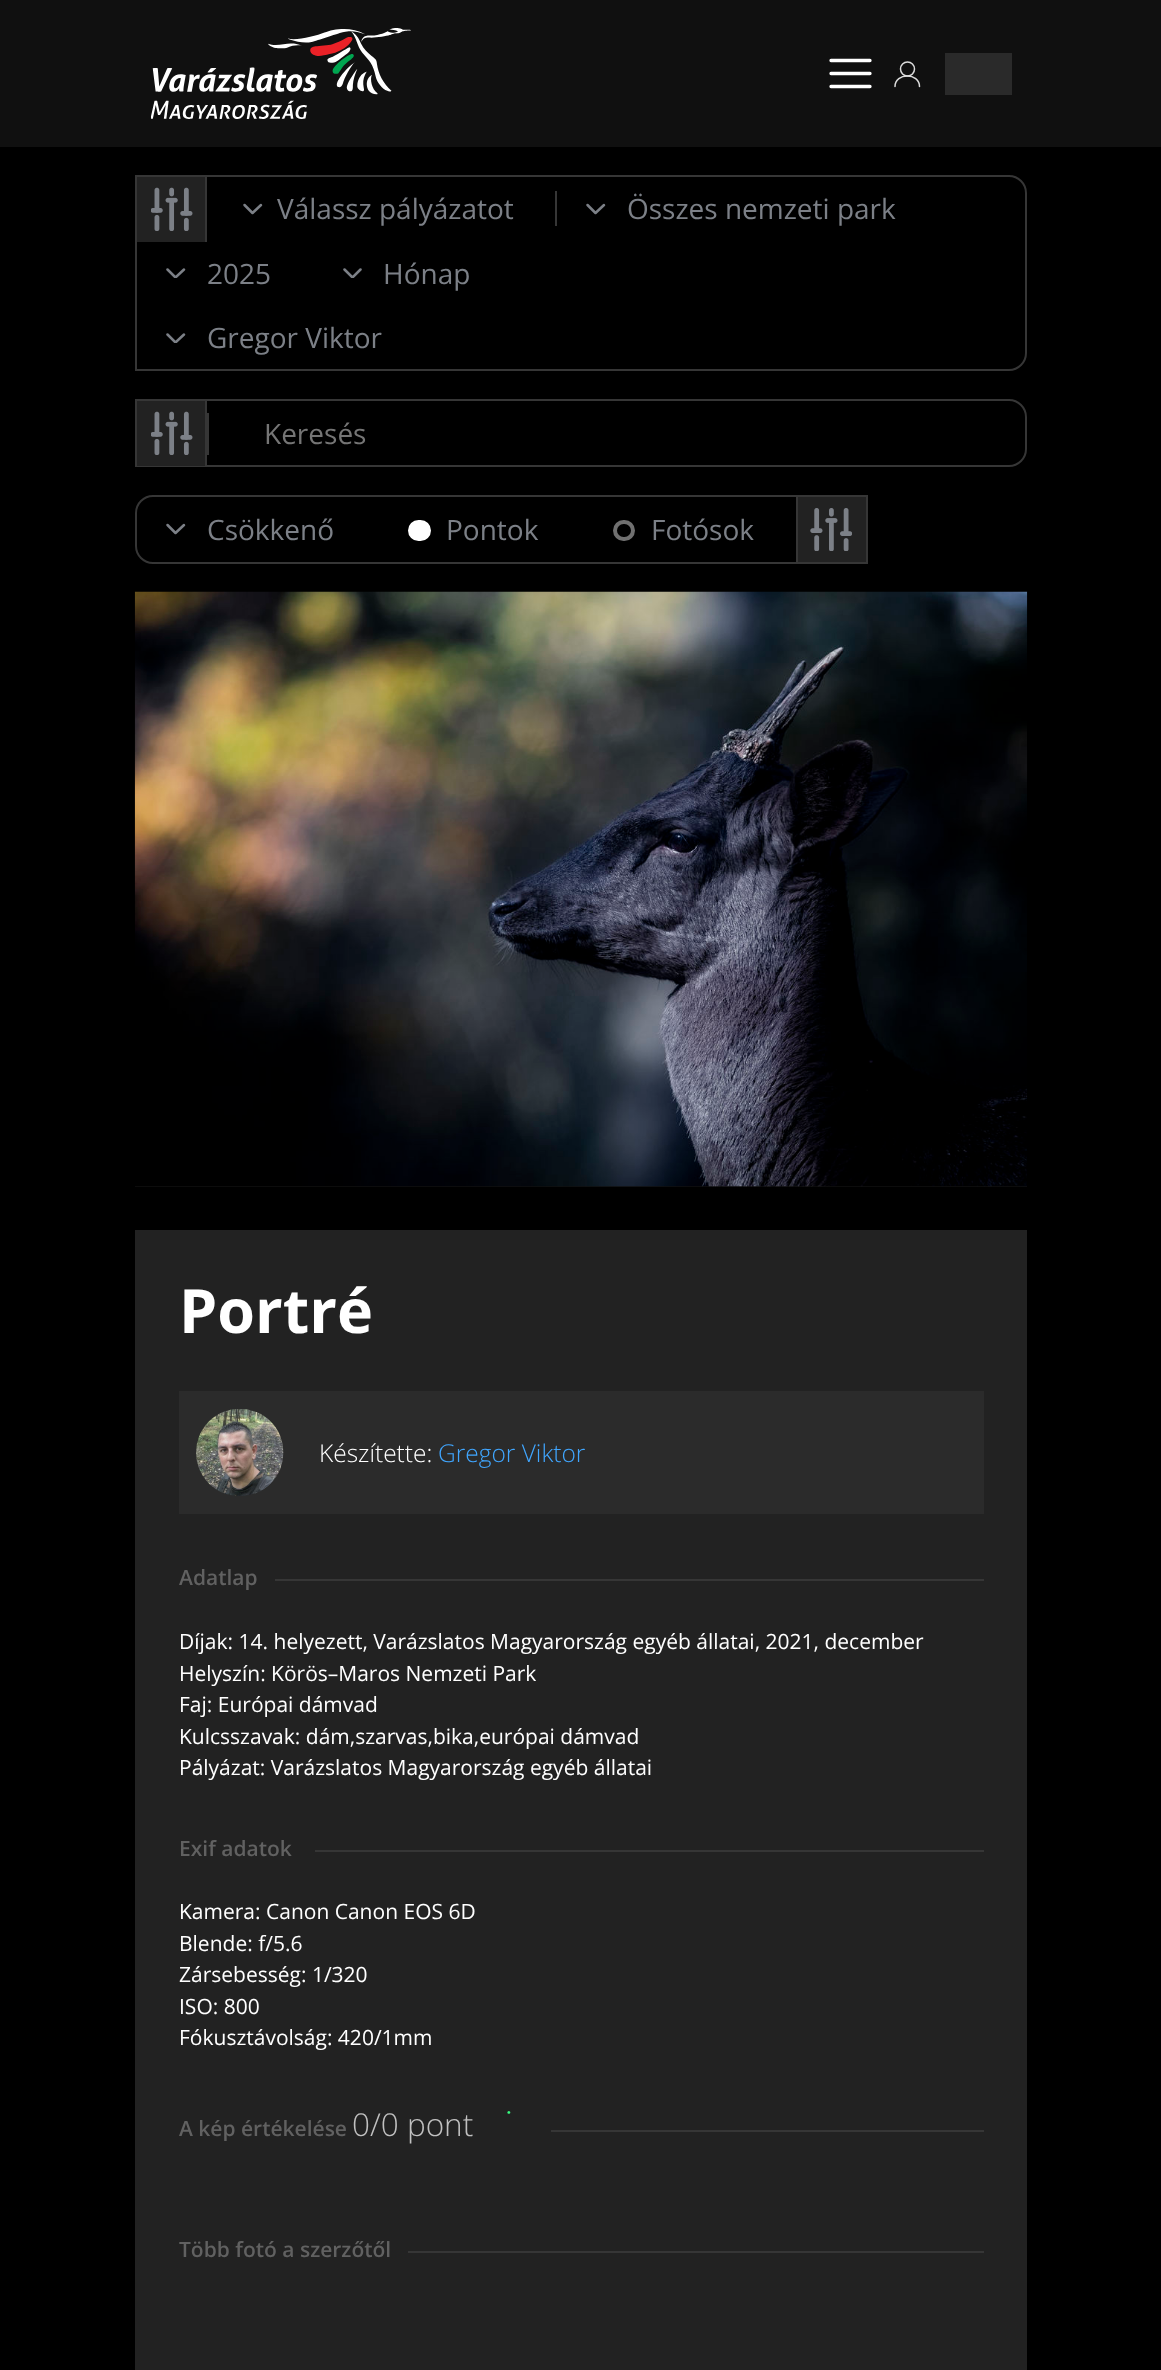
(async () => {
    const canvas = document.querySelector("canvas");
    canvas.width = 1161;
    canvas.height = 2370;
    const context = canvas.getContext("2d");
    context.miterLimit = 4;
    context.fontKerning = "normal";
    function write(s, x, y, font, color) {
        context.font = font;
        context.fillStyle = color;
        context.fillText(s, x, y);
    }
    function block(x, y, w, h, color) {
        context.fillStyle = color;
        context.fillRect(x, y, w, h);
    }
    async function photo(src, x, y, w, h) {
        const img = new Image();
        img.src = src;
        await img.decode();
        context.drawImage(img, x, y, w, h);
    }

    block(0, 0, 1161, 2370, "rgb(0, 0, 0)");
    block(0, 0, 1161, 147, "rgb(16, 16, 16)");
    await photo("media/1.png", 151, 28, 260, 91);
    context.beginPath();
    context.moveTo(831, 60.5);
    context.lineTo(870, 60.5);
    context.moveTo(831, 73.5);
    context.lineTo(870, 73.5);
    context.moveTo(831, 86.5);
    context.lineTo(870, 86.5);
    context.strokeStyle = "rgb(255, 255, 255)";
    context.lineWidth = 3.3;
    context.lineCap = "round";
    context.stroke();
    context.beginPath();
    context.arc(907.5, 69, 7, 0, Math.PI * 2);
    context.strokeStyle = "rgb(220, 220, 220)";
    context.lineWidth = 1.5;
    context.stroke();
    context.beginPath();
    context.moveTo(919.5, 86.5);
    context.bezierCurveTo(919.5, 72.5, 895, 72.5, 895, 86.5);
    context.lineJoin = "round";
    context.stroke();
    block(945, 53, 67, 42, "rgb(42, 42, 42)");
    context.beginPath();
    context.roundRect(136, 176, 890, 194, [0, 17, 17, 0]);
    context.strokeStyle = "rgb(54, 54, 54)";
    context.lineWidth = 2;
    context.lineJoin = "miter";
    context.stroke();
    block(137, 177, 68, 65, "rgb(34, 34, 34)");
    await photo("media/2.png", 151, 187, 42, 44);
    block(205, 177, 2, 65, "rgb(54, 54, 54)");
    block(555, 191, 2, 35, "rgb(54, 54, 54)");
    context.beginPath();
    context.moveTo(244.5, 205);
    context.lineTo(252.5, 213);
    context.lineTo(261, 205);
    context.strokeStyle = "rgb(124, 128, 135)";
    context.lineWidth = 2.5;
    context.lineJoin = "round";
    context.stroke();
    write("Válassz pályázatot", 277, 219, "28px Open Sans", "rgb(124, 128, 135)");
    context.beginPath();
    context.moveTo(587.5, 205);
    context.lineTo(595.5, 213);
    context.lineTo(604, 205);
    context.stroke();
    write("Összes nemzeti park", 627, 219, "28px Open Sans", "rgb(124, 128, 135)");
    context.save();
    context.beginPath();
    context.rect(165, 268, 22, 10);
    context.clip();
    context.beginPath();
    context.moveTo(167.5, 269.5);
    context.lineTo(175.5, 277.5);
    context.lineTo(184, 269.5);
    context.stroke();
    context.restore();
    write("2025", 207, 284, "28px Open Sans", "rgb(124, 128, 135)");
    context.save();
    context.beginPath();
    context.rect(341, 268, 23, 10);
    context.clip();
    context.beginPath();
    context.moveTo(344.5, 269.5);
    context.lineTo(352.5, 277.5);
    context.lineTo(360.5, 269.5);
    context.stroke();
    context.restore();
    write("Hónap", 383, 284, "28px Open Sans", "rgb(124, 128, 135)");
    context.save();
    context.beginPath();
    context.rect(165, 333, 22, 10);
    context.clip();
    context.beginPath();
    context.moveTo(167.5, 334.5);
    context.lineTo(175.5, 342.5);
    context.lineTo(184, 334.5);
    context.stroke();
    context.restore();
    write("Gregor Viktor", 207, 348, "28px Open Sans", "rgb(124, 128, 135)");
    context.beginPath();
    context.roundRect(136, 400, 890, 66, [0, 17, 17, 0]);
    context.strokeStyle = "rgb(54, 54, 54)";
    context.lineWidth = 2;
    context.lineJoin = "miter";
    context.stroke();
    block(137, 401, 68, 65, "rgb(34, 34, 34)");
    await photo("media/2.png", 151, 411, 42, 44);
    block(205, 401, 2, 65, "rgb(54, 54, 54)");
    block(207, 413, 2, 42, "rgb(54, 54, 54)");
    write("Keresés", 264, 444, "28px Open Sans", "rgb(117, 117, 117)");
    context.beginPath();
    context.roundRect(136, 496, 731, 67, [17, 0, 0, 17]);
    context.stroke();
    context.beginPath();
    context.moveTo(167.5, 525);
    context.lineTo(175.5, 533);
    context.lineTo(184, 525);
    context.strokeStyle = "rgb(124, 128, 135)";
    context.lineWidth = 2.5;
    context.lineJoin = "round";
    context.stroke();
    write("Csökkenő", 207, 540, "28px Open Sans", "rgb(124, 128, 135)");
    context.fillStyle = "rgb(255, 255, 255)";
    context.beginPath();
    context.roundRect(410, 522, 19, 17, 8.5);
    context.fill();
    context.strokeStyle = "rgb(255, 255, 255)";
    context.lineWidth = 4;
    context.lineJoin = "miter";
    context.stroke();
    write("Pontok", 446, 540, "28px Open Sans", "rgb(124, 128, 135)");
    context.beginPath();
    context.roundRect(615, 522, 18, 17, 8.5);
    context.strokeStyle = "rgb(112, 112, 112)";
    context.stroke();
    write("Fotósok", 651, 540, "28px Open Sans", "rgb(124, 128, 135)");
    block(798, 497, 68, 65, "rgb(34, 34, 34)");
    await photo("media/3.png", 810, 508, 42, 43);
    block(796, 497, 2, 65, "rgb(54, 54, 54)");
    block(135, 1186, 892, 1, "rgb(17, 17, 17)");
    await photo("media/4.png", 134, 591, 894, 596);
    block(135, 1230, 892, 1140, "rgb(34, 34, 34)");
    write("Portré", 179, 1333, "bold 61px Open Sans", "rgb(255, 255, 255)");
    block(179, 1391, 805, 123, "rgb(43, 43, 43)");
    await photo("media/5.png", 196, 1409, 88, 87);
    write("Készítette:", 319, 1462, "300 24.5px Open Sans", "rgb(255, 255, 255)");
    write("Gregor Viktor", 438, 1462, "300 24.5px Open Sans", "rgb(64, 166, 255)");
    write("Adatlap", 179, 1585, "600 21px Open Sans", "rgb(97, 97, 97)");
    block(275, 1579, 709, 2, "rgb(54, 54, 54)");
    write("Díjak: 14. helyezett, Varázslatos Magyarország egyéb állatai, 2021, december", 179, 1649, "21px Open Sans", "rgb(255, 255, 255)");
    write("Helyszín: Körös–Maros Nemzeti Park", 179, 1681, "21px Open Sans", "rgb(255, 255, 255)");
    write("Faj: Európai dámvad", 179, 1712, "21px Open Sans", "rgb(255, 255, 255)");
    write("Kulcsszavak: dám,szarvas,bika,európai dámvad", 179, 1744, "21px Open Sans", "rgb(255, 255, 255)");
    write("Pályázat: Varázslatos Magyarország egyéb állatai", 179, 1775, "21px Open Sans", "rgb(255, 255, 255)");
    write("Exif adatok", 179, 1856, "600 21px Open Sans", "rgb(97, 97, 97)");
    block(315, 1850, 669, 2, "rgb(54, 54, 54)");
    write("Kamera: Canon Canon EOS 6D", 179, 1919, "21px Open Sans", "rgb(255, 255, 255)");
    write("Blende: f/5.6", 179, 1951, "21px Open Sans", "rgb(255, 255, 255)");
    write("Zársebesség: 1/320", 179, 1982, "21px Open Sans", "rgb(255, 255, 255)");
    write("ISO: 800", 179, 2014, "21px Open Sans", "rgb(255, 255, 255)");
    write("Fókusztávolság: 420/1mm", 179, 2045, "21px Open Sans", "rgb(255, 255, 255)");
    context.beginPath();
    context.moveTo(509, 2112.5);
    context.bezierCurveTo(518.5, 2112.5, 526.5, 2120.5, 526.5, 2130);
    context.bezierCurveTo(526.5, 2139, 518.5, 2147, 509, 2147);
    context.bezierCurveTo(500, 2147, 492, 2139, 492, 2130);
    context.bezierCurveTo(492, 2120.5, 500, 2112.5, 509, 2112.5);
    context.strokeStyle = "rgb(55, 255, 128)";
    context.lineWidth = 2.7;
    context.setLineDash([0, 106.94]);
    context.stroke();
    write("A kép értékelése", 179, 2136, "600 21px Open Sans", "rgb(97, 97, 97)");
    write("0/0 pont", 352, 2136, "300 31.5px Open Sans", "rgb(193, 193, 193)");
    block(551, 2130, 433, 2, "rgb(54, 54, 54)");
    write("Több fotó a szerzőtől", 179, 2257, "600 21px Open Sans", "rgb(97, 97, 97)");
    block(408, 2251, 576, 2, "rgb(54, 54, 54)");
})();
